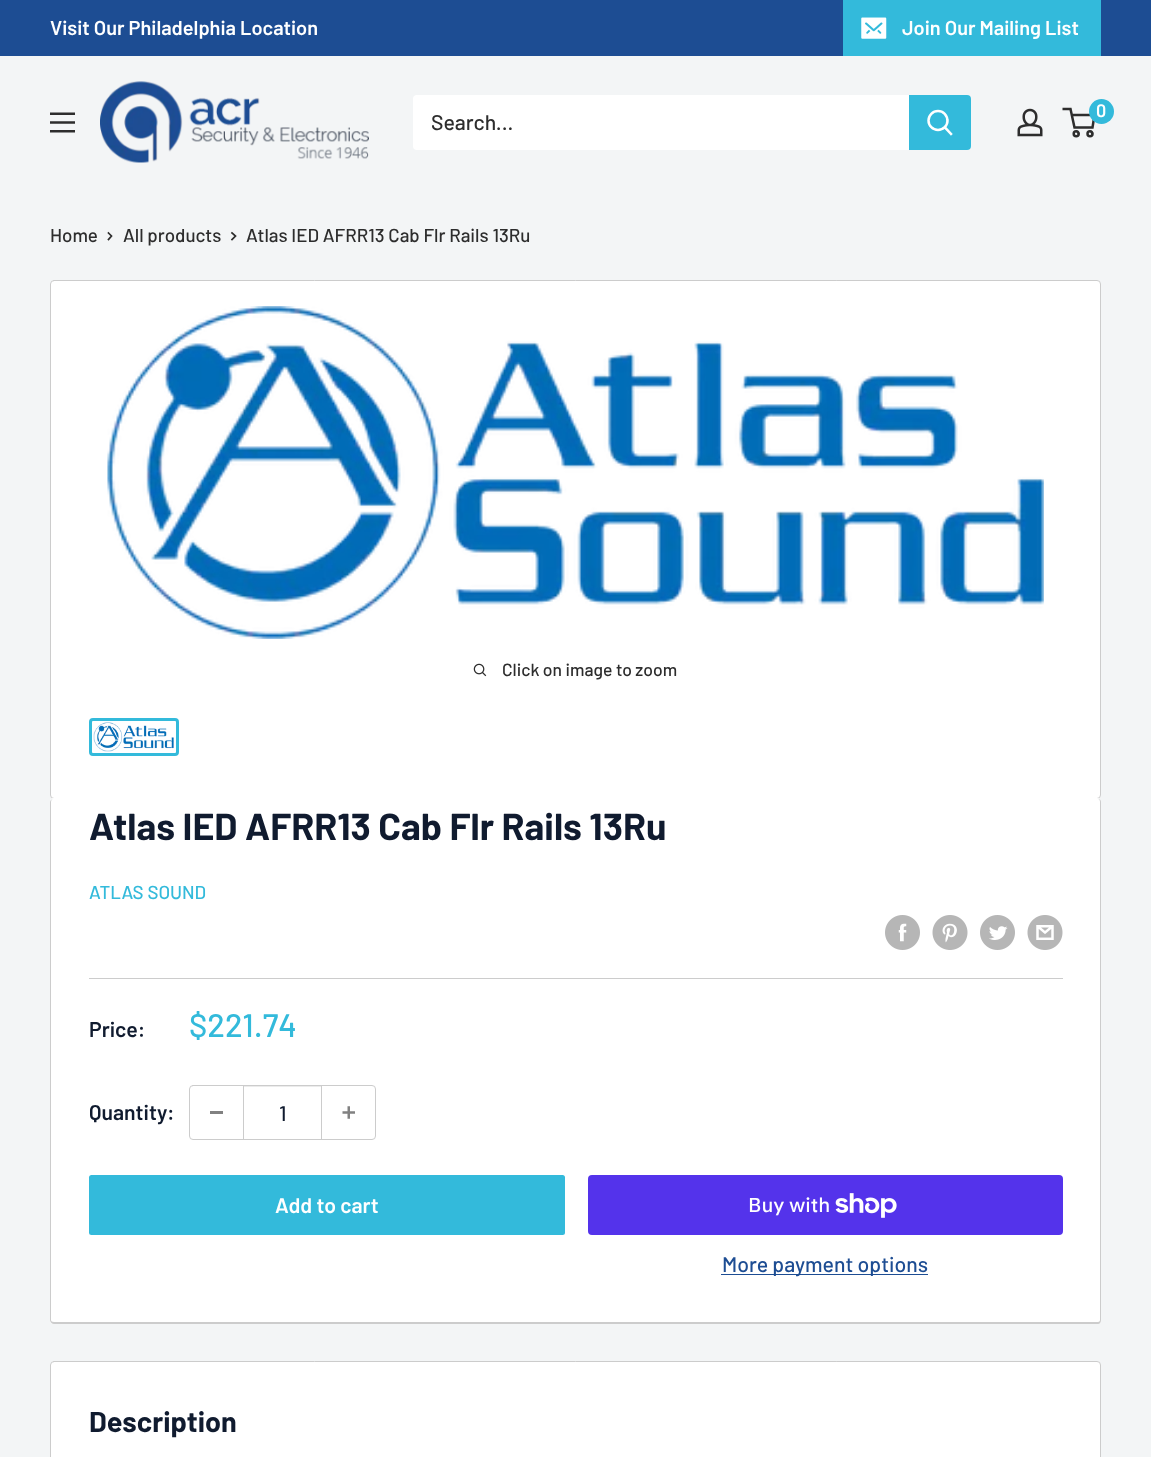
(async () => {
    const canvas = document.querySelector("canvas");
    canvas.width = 1151;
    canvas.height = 1457;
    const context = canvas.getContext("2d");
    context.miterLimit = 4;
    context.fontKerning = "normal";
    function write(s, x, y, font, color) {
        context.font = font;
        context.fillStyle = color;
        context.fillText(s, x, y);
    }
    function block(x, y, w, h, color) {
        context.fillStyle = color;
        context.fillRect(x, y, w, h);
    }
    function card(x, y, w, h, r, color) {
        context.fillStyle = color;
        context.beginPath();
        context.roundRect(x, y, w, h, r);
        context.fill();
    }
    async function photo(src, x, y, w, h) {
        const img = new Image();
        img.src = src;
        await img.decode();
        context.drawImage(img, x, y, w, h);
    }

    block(0, 0, 1151, 1457, "rgb(243, 245, 246)");
    block(0, 0, 1151, 56, "rgb(29, 77, 147)");
    write("Visit Our Philadelphia Location", 50, 35, "600 20px Barlow", "rgb(255, 255, 255)");
    block(843, 0, 258, 56, "rgb(51, 186, 219)");
    await photo("media/1.png", 861, 17, 26, 22);
    write("Join Our Mailing List", 902, 35, "600 20px Barlow", "rgb(255, 255, 255)");
    await photo("media/2.png", 50, 112, 25, 21);
    await photo("media/3.png", 100, 81, 269, 82);
    card(413, 95, 558, 55, 4, "rgb(255, 255, 255)");
    write("Search...", 431, 130, "500 21.25px Barlow", "rgb(45, 45, 45)");
    context.fillStyle = "rgb(51, 186, 219)";
    context.beginPath();
    context.roundRect(909, 95, 62, 55, [0, 4, 4, 0]);
    context.fill();
    context.beginPath();
    context.moveTo(951, 134);
    context.lineTo(945, 127.5);
    context.strokeStyle = "rgb(255, 255, 255)";
    context.lineWidth = 2.5;
    context.lineCap = "square";
    context.stroke();
    context.beginPath();
    context.arc(938, 120.5, 9.5, 0, Math.PI * 2);
    context.stroke();
    await photo("media/4.png", 1017, 108, 26, 29);
    context.beginPath();
    context.arc(1076.2, 133.8, 2.5, 0, Math.PI * 2);
    context.strokeStyle = "rgb(45, 45, 45)";
    context.stroke();
    context.beginPath();
    context.arc(1090, 133.8, 2.5, 0, Math.PI * 2);
    context.stroke();
    context.beginPath();
    context.moveTo(1071.5, 115);
    context.lineTo(1094.5, 115);
    context.lineTo(1092.5, 127.5);
    context.lineTo(1074.5, 127.5);
    context.lineTo(1070.5, 109);
    context.lineTo(1062.5, 109);
    context.lineCap = "butt";
    context.stroke();
    context.beginPath();
    context.arc(1101.5, 111.5, 12.5, 0, Math.PI * 2);
    context.fill();
    write("0", 1096, 117, "600 18px Barlow", "rgb(255, 255, 255)");
    write("Home", 50, 242, "500 18.75px Barlow", "rgb(45, 45, 45)");
    context.beginPath();
    context.moveTo(108.5, 233);
    context.lineTo(111.5, 236);
    context.lineTo(108.5, 239.5);
    context.lineWidth = 1.7;
    context.lineCap = "square";
    context.stroke();
    write("All products", 123, 242, "500 18.75px Barlow", "rgb(45, 45, 45)");
    context.beginPath();
    context.moveTo(232, 233);
    context.lineTo(235.5, 236);
    context.lineTo(232, 239.5);
    context.stroke();
    write("Atlas IED AFRR13 Cab Flr Rails 13Ru", 246, 242, "500 18.75px Barlow", "rgb(45, 45, 45)");
    context.fillStyle = "rgb(255, 255, 255)";
    context.beginPath();
    context.roundRect(50.5, 280.5, 1050, 518, 3.5);
    context.fill();
    context.strokeStyle = "rgb(204, 204, 204)";
    context.lineWidth = 1;
    context.stroke();
    await photo("media/5.png", 107, 306, 937, 333);
    await photo("media/6.png", 473, 663, 14, 14);
    write("Click on image to zoom", 502, 676, "500 17.5px Barlow", "rgb(45, 45, 45)");
    context.beginPath();
    context.roundRect(90.5, 719.5, 87, 35, 2.5);
    context.strokeStyle = "rgb(51, 186, 219)";
    context.lineWidth = 3;
    context.stroke();
    await photo("media/7.png", 93, 722, 81, 30);
    context.fillStyle = "rgb(255, 255, 255)";
    context.beginPath();
    context.moveTo(54, 798);
    context.bezierCurveTo(51, 798, 50, 800, 50, 802);
    context.bezierCurveTo(50, 800, 52, 799, 54, 799);
    context.lineTo(1098, 799);
    context.bezierCurveTo(1099, 799, 1100, 800, 1101, 801);
    context.bezierCurveTo(1100, 799, 1099, 798, 1097, 798);
    context.closePath();
    context.fill();
    card(50, 799, 1051, 525, 4, "rgb(255, 255, 255)");
    context.fillStyle = "rgb(204, 204, 204)";
    context.beginPath();
    context.moveTo(54, 799);
    context.lineTo(1098, 799);
    context.bezierCurveTo(1100, 799, 1101, 800, 1101, 802);
    context.lineTo(1101, 1320);
    context.bezierCurveTo(1101, 1322, 1100, 1324, 1098, 1324);
    context.lineTo(54, 1324);
    context.bezierCurveTo(52, 1324, 50, 1322, 50, 1320);
    context.lineTo(50, 802);
    context.bezierCurveTo(50, 800, 52, 799, 54, 799);
    context.closePath();
    context.moveTo(54, 799);
    context.lineTo(1098, 799);
    context.bezierCurveTo(1099, 799, 1100, 800, 1100, 802);
    context.lineTo(1100, 1320);
    context.bezierCurveTo(1100, 1321, 1099, 1322, 1098, 1322);
    context.lineTo(54, 1322);
    context.bezierCurveTo(52, 1322, 51, 1321, 51, 1320);
    context.lineTo(51, 802);
    context.bezierCurveTo(51, 800, 52, 799, 54, 799);
    context.closePath();
    context.fill("evenodd");
    write("Atlas IED AFRR13 Cab Flr Rails 13Ru", 89, 840, "bold 37.5px Barlow", "rgb(16, 27, 47)");
    write("ATLAS SOUND", 89, 899, "500 18.75px Barlow", "rgb(51, 186, 219)");
    await photo("media/8.png", 885, 915, 35, 35);
    await photo("media/9.png", 932, 915, 36, 35);
    await photo("media/10.png", 980, 915, 35, 35);
    await photo("media/11.png", 1027, 915, 36, 35);
    block(89, 978, 974, 1, "rgb(204, 204, 204)");
    write("Price:", 89, 1037, "600 21.25px Barlow", "rgb(16, 27, 47)");
    write("$221.74", 189, 1037, "500 32.5px Barlow", "rgb(51, 186, 219)");
    write("Quantity:", 89, 1120, "600 21.25px Barlow", "rgb(16, 27, 47)");
    context.beginPath();
    context.roundRect(189.5, 1085.5, 186, 54, 3.5);
    context.strokeStyle = "rgb(204, 204, 204)";
    context.lineWidth = 1;
    context.stroke();
    block(210, 1111, 13, 3, "rgb(129, 129, 129)");
    block(244, 1086, 77, 1, "rgb(235, 235, 235)");
    block(321, 1086, 1, 53, "rgb(204, 204, 204)");
    block(243, 1086, 1, 53, "rgb(204, 204, 204)");
    write("1", 279, 1121, "500 21.25px Barlow", "rgb(16, 27, 47)");
    await photo("media/12.png", 342, 1106, 13, 13);
    card(89, 1175, 476, 60, 2.5, "rgb(51, 186, 219)");
    write("Add to cart", 275, 1213, "600 21.25px Barlow", "rgb(255, 255, 255)");
    card(588, 1175, 475, 60, 4, "rgb(84, 51, 235)");
    write("Buy with", 748, 1212, "500 20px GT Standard", "rgb(255, 255, 255)");
    await photo("media/13.png", 835, 1193, 62, 25);
    block(721, 1274, 207, 1, "rgb(29, 77, 147)");
    write("More payment options", 722, 1272, "500 21.25px Barlow", "rgb(29, 77, 147)");
    context.fillStyle = "rgb(255, 255, 255)";
    context.beginPath();
    context.roundRect(50.5, 1361.5, 1050, 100, 3.5);
    context.fill();
    context.stroke();
    write("Description", 89, 1432, "bold 28.75px Barlow", "rgb(16, 27, 47)");
})();
